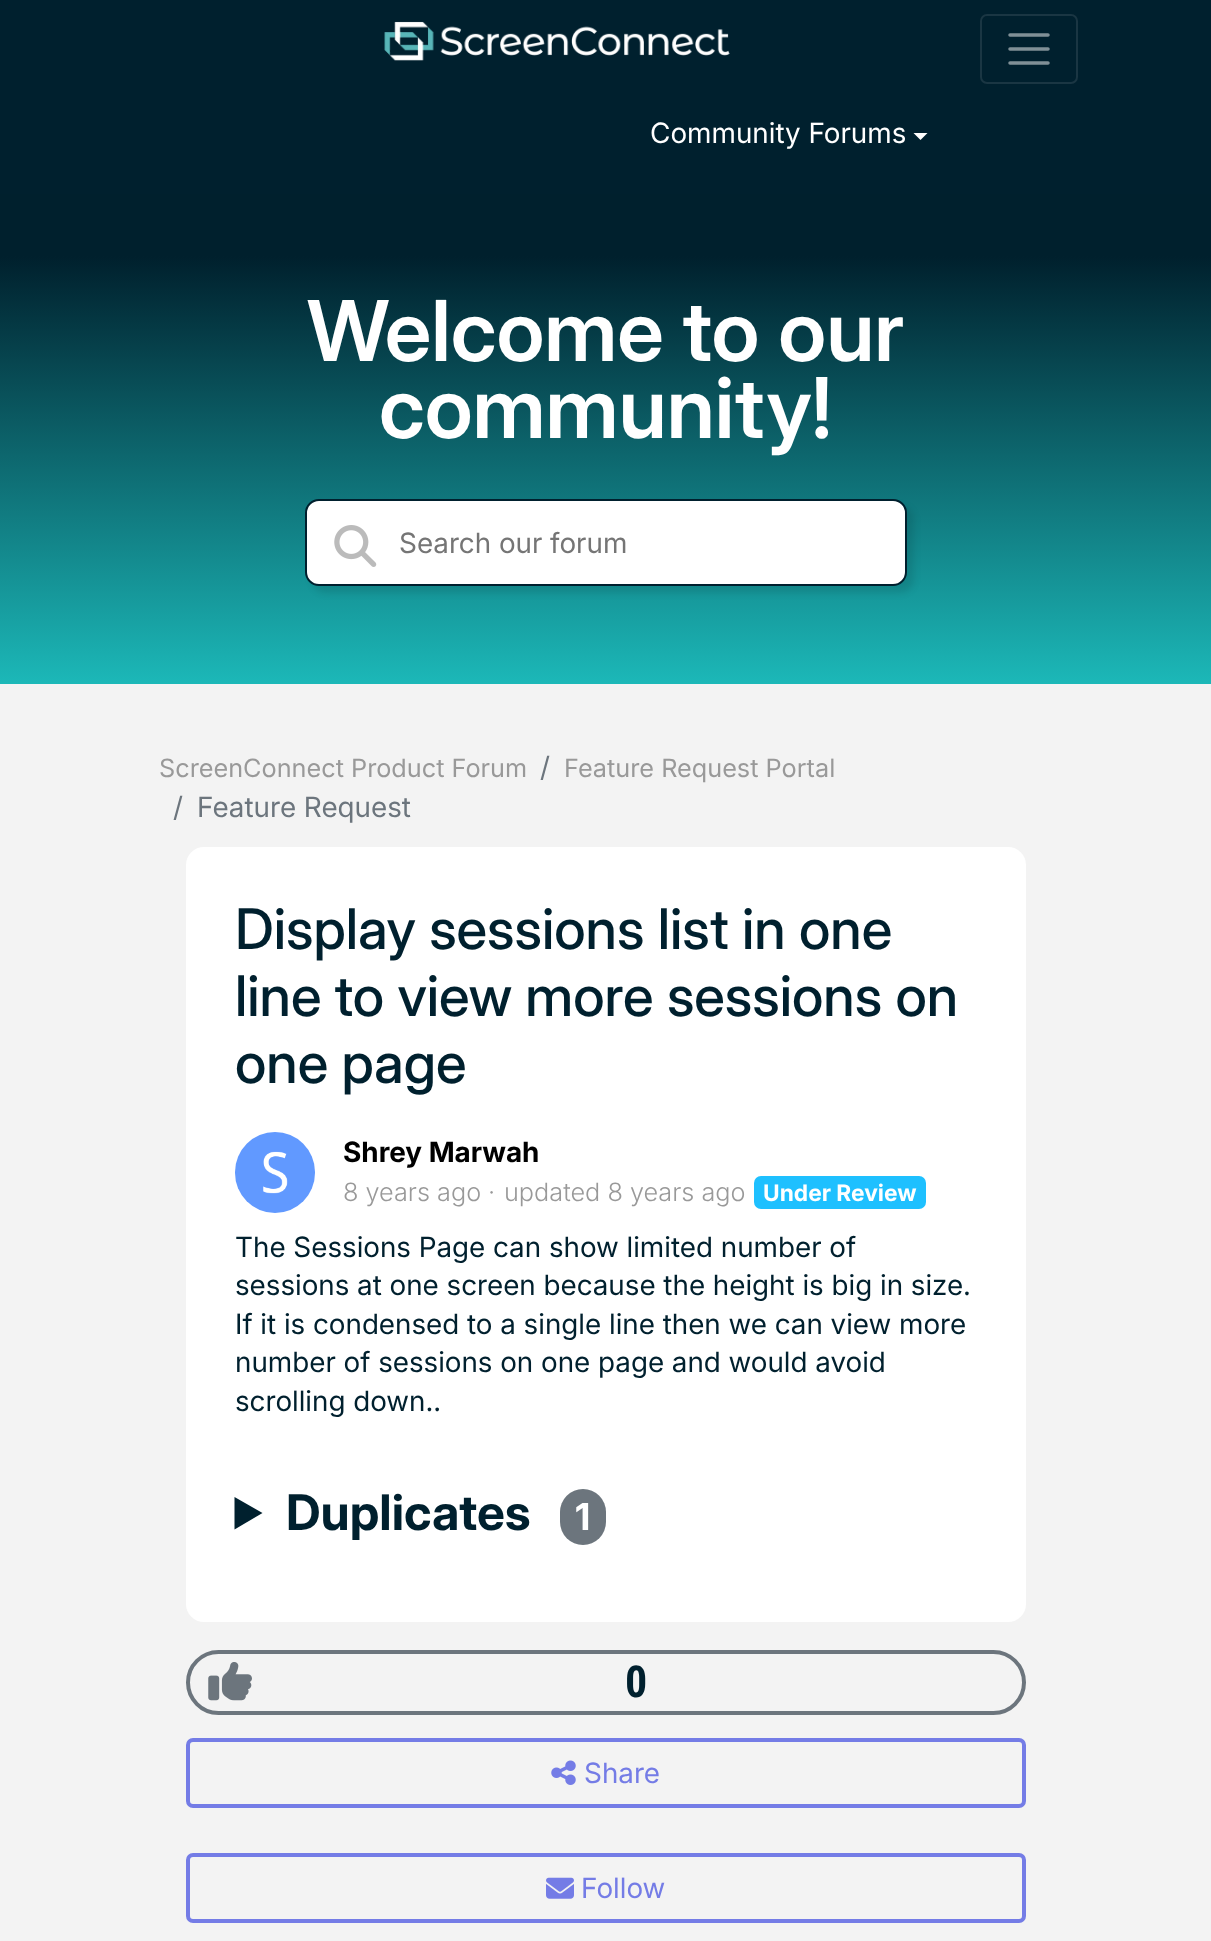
(async () => {
    const canvas = document.querySelector("canvas");
    canvas.width = 1211;
    canvas.height = 1941;
    const context = canvas.getContext("2d");
    context.miterLimit = 4;
    context.fontKerning = "normal";
    function write(s, x, y, font, color) {
        context.font = font;
        context.fillStyle = color;
        context.fillText(s, x, y);
    }
    function block(x, y, w, h, color) {
        context.fillStyle = color;
        context.fillRect(x, y, w, h);
    }
    function card(x, y, w, h, r, color) {
        context.fillStyle = color;
        context.beginPath();
        context.roundRect(x, y, w, h, r);
        context.fill();
    }
    async function photo(src, x, y, w, h) {
        const img = new Image();
        img.src = src;
        await img.decode();
        context.drawImage(img, x, y, w, h);
    }
    let gradient;

    block(0, 0, 1211, 1941, "rgb(243, 243, 243)");
    block(0, 0, 1211, 194, "rgb(0, 32, 46)");
    await photo("media/1.png", 384, 21, 346, 40);
    context.beginPath();
    context.roundRect(981, 15, 96, 68, 6);
    context.strokeStyle = "rgb(26, 54, 67)";
    context.lineWidth = 2;
    context.stroke();
    context.beginPath();
    context.moveTo(1010, 35);
    context.lineTo(1048, 35);
    context.moveTo(1010, 49);
    context.lineTo(1048, 49);
    context.moveTo(1010, 63);
    context.lineTo(1048, 63);
    context.strokeStyle = "rgb(128, 144, 151)";
    context.lineWidth = 3.5;
    context.lineCap = "round";
    context.stroke();
    write("Community Forums", 650, 143, "28px 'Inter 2'", "rgb(255, 255, 255)");
    context.beginPath();
    context.moveTo(913.5, 133);
    context.lineTo(927.5, 133);
    context.lineTo(920.5, 140);
    context.closePath();
    context.fill();
    gradient = context.createLinearGradient(606, 73, 606, 684);
    gradient.addColorStop(0.3, "rgb(0, 32, 45)");
    gradient.addColorStop(1, "rgb(28, 184, 184)");
    context.fillStyle = gradient;
    context.fillRect(0, 194, 1211, 490);
    write("Welcome to our", 307, 361, "600 84px Inter", "rgb(255, 255, 255)");
    write("community!", 379, 438, "600 84px Inter", "rgb(255, 255, 255)");
    context.fillStyle = "rgba(0, 0, 0, 0.1)";
    context.filter = "blur(3.5px)";
    context.beginPath();
    context.roundRect(312, 506, 602, 87, 14);
    context.fill();
    context.filter = "none";
    context.fillStyle = "rgb(255, 255, 255)";
    context.beginPath();
    context.roundRect(306, 500, 600, 85, 13);
    context.fill();
    context.strokeStyle = "rgb(0, 32, 46)";
    context.lineWidth = 2;
    context.stroke();
    await photo("media/2.png", 334, 525, 43, 42);
    write("Search our forum", 399, 553, "28px 'Inter 2'", "rgb(117, 117, 117)");
    write("ScreenConnect Product Forum", 159, 777, "25.25px Inter", "rgb(153, 153, 153)");
    write("/", 540, 777, "28px 'Inter 2'", "rgb(108, 117, 125)");
    write("Feature Request Portal", 564, 777, "25.25px Inter", "rgb(153, 153, 153)");
    write("/", 173, 817, "28px 'Inter 2'", "rgb(108, 117, 125)");
    write("Feature Request", 197, 817, "28px 'Inter 2'", "rgb(108, 117, 125)");
    card(186, 847, 840, 775, 18, "rgb(255, 255, 255)");
    write("Display sessions list in one", 235, 949, "500 56px Inter", "rgb(0, 32, 46)");
    write("line to view more sessions on", 235, 1016, "500 56px Inter", "rgb(0, 32, 46)");
    write("one page", 235, 1083, "500 56px Inter", "rgb(0, 32, 46)");
    card(235, 1132, 80, 81, 40, "rgb(97, 153, 255)");
    await photo("media/3.png", 263, 1151, 25, 43);
    write("Shrey Marwah", 343, 1162, "bold 28px Inter", "rgb(0, 0, 0)");
    write("8 years ago", 343, 1201, "300 25.25px Inter", "rgb(153, 153, 153)");
    write("·", 488, 1201, "300 25.25px Inter", "rgb(153, 153, 153)");
    write("updated 8 years ago", 504, 1201, "300 25.25px Inter", "rgb(153, 153, 153)");
    card(754, 1176, 172, 33, 7, "rgb(30, 192, 255)");
    write("Under Review", 763, 1201, "bold 22.75px 'Inter 2'", "rgb(255, 255, 255)");
    write("The Sessions Page can show limited number of", 235, 1257, "28px 'Inter 2'", "rgb(0, 32, 46)");
    write("sessions at one screen because the height is big in size.", 235, 1295, "28px 'Inter 2'", "rgb(0, 32, 46)");
    write("If it is condensed to a single line then we can view more", 235, 1334, "28px 'Inter 2'", "rgb(0, 32, 46)");
    write("number of sessions on one page and would avoid", 235, 1372, "28px 'Inter 2'", "rgb(0, 32, 46)");
    write("scrolling down..", 235, 1411, "28px 'Inter 2'", "rgb(0, 32, 46)");
    context.beginPath();
    context.moveTo(234.5, 1497);
    context.lineTo(262.5, 1513);
    context.lineTo(234.5, 1529.5);
    context.closePath();
    context.fill();
    write("Duplicates", 286, 1530, "bold 49px 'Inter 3'", "rgb(0, 32, 46)");
    card(560, 1489, 46, 56, 23, "rgb(108, 117, 125)");
    write("1", 575, 1530, "bold 37px 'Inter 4'", "rgb(255, 255, 255)");
    context.beginPath();
    context.roundRect(188, 1652, 836, 61, 30.5);
    context.strokeStyle = "rgb(108, 117, 125)";
    context.lineWidth = 4;
    context.stroke();
    await photo("media/4.png", 208, 1662, 44, 39);
    write("0", 625, 1697, "bold 44px Roboto Condensed", "rgb(0, 32, 46)");
    context.beginPath();
    context.roundRect(188, 1740, 836, 66, 5);
    context.strokeStyle = "rgb(116, 124, 230)";
    context.stroke();
    await photo("media/5.png", 551, 1760, 25, 25);
    write("Share", 584, 1783, "28px 'Inter 2'", "rgb(116, 124, 230)");
    context.beginPath();
    context.roundRect(188, 1855, 836, 66, 5);
    context.stroke();
    await photo("media/6.png", 546, 1877, 28, 22);
    write("Follow", 581, 1898, "28px 'Inter 2'", "rgb(116, 124, 230)");
})();
